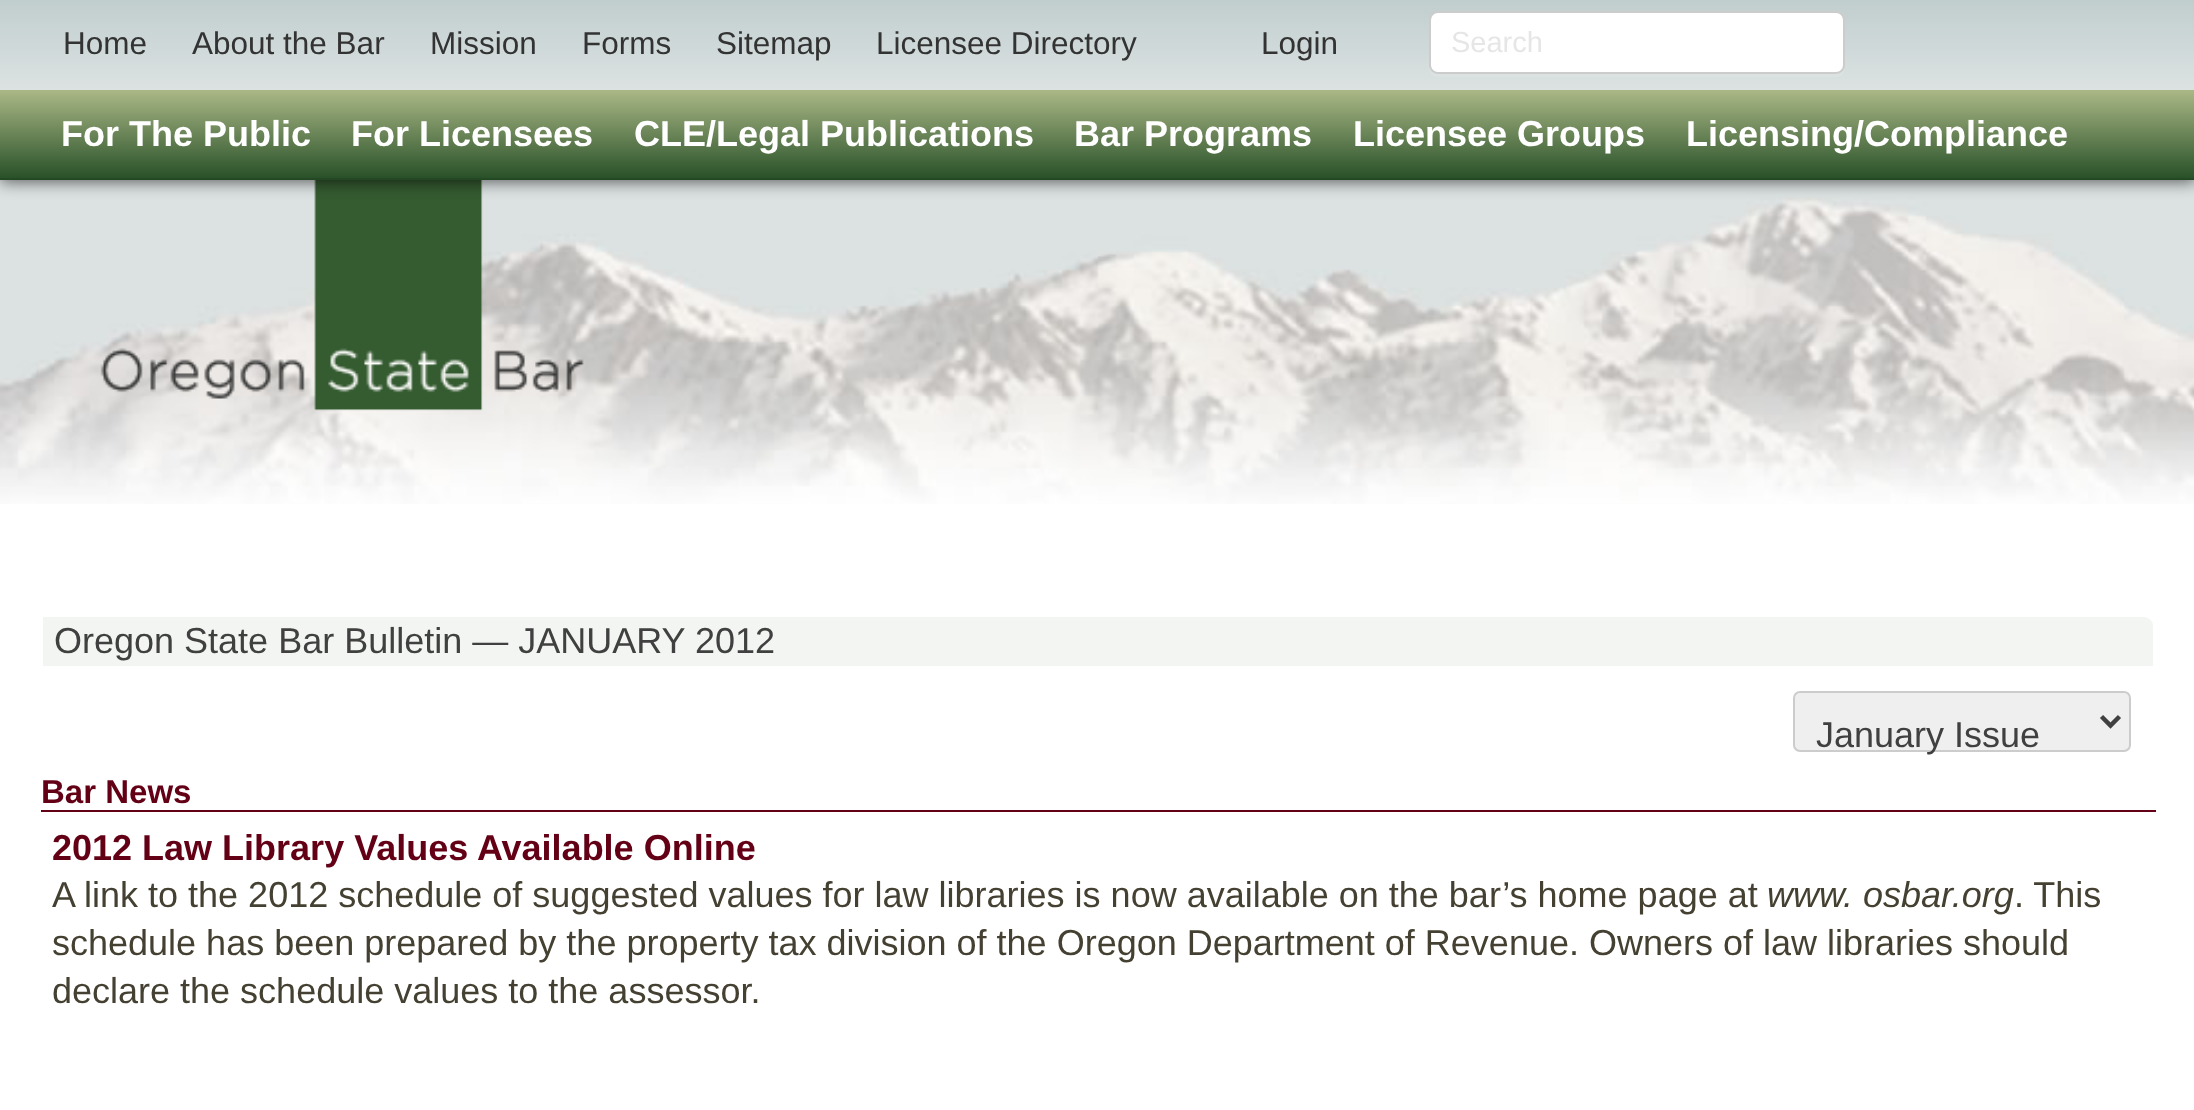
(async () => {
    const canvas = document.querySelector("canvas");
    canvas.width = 2194;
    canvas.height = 1110;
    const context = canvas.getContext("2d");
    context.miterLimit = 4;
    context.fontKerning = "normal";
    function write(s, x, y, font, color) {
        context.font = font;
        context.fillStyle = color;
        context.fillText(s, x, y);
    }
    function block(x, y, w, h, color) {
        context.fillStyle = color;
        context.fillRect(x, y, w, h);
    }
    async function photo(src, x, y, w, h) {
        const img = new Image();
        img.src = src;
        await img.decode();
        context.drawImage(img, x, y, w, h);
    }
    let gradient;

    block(0, 0, 2194, 1110, "rgb(255, 255, 255)");
    await photo("media/1.png", 0, 180, 2194, 324);
    await photo("media/2.png", 100, 180, 484, 231);
    context.fillStyle = "rgba(0, 0, 0, 0.6)";
    context.filter = "blur(8px)";
    context.beginPath();
    context.rect(0, 92, 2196, 90);
    context.fill();
    context.filter = "none";
    gradient = context.createLinearGradient(1098, 0, 1098, 90);
    gradient.addColorStop(0, "rgb(193, 206, 206)");
    gradient.addColorStop(1, "rgb(220, 226, 226)");
    context.fillStyle = gradient;
    context.fillRect(0, 0, 2194, 90);
    write("Home", 63, 54, "31.5px Liberation Sans", "rgb(51, 51, 51)");
    write("About the Bar", 192, 54, "31.5px Liberation Sans", "rgb(51, 51, 51)");
    write("Mission", 430, 54, "31.5px Liberation Sans", "rgb(51, 51, 51)");
    write("Forms", 582, 54, "31.5px Liberation Sans", "rgb(51, 51, 51)");
    write("Sitemap", 716, 54, "31.5px Liberation Sans", "rgb(51, 51, 51)");
    write("Licensee Directory", 876, 54, "31.5px Liberation Sans", "rgb(51, 51, 51)");
    write("Login", 1261, 54, "31.5px Liberation Sans", "rgb(51, 51, 51)");
    context.fillStyle = "rgb(220, 226, 226)";
    context.beginPath();
    context.moveTo(1429, 67);
    context.bezierCurveTo(1429, 73, 1433, 77, 1438, 77);
    context.lineTo(1838, 77);
    context.bezierCurveTo(1844, 76, 1845, 70, 1845, 65);
    context.bezierCurveTo(1845, 70, 1841, 74, 1836, 74);
    context.lineTo(1438, 74);
    context.bezierCurveTo(1434, 74, 1430, 71, 1429, 67);
    context.closePath();
    context.fill();
    context.fillStyle = "rgb(255, 255, 255)";
    context.beginPath();
    context.roundRect(1430, 12, 414, 61, 8);
    context.fill();
    context.strokeStyle = "rgb(204, 204, 204)";
    context.lineWidth = 2;
    context.stroke();
    write("Search", 1451, 52, "29px Liberation Sans", "rgb(230, 230, 230)");
    gradient = context.createLinearGradient(0, 90, 0, 180);
    gradient.addColorStop(0, "rgb(171, 184, 134)");
    gradient.addColorStop(1, "rgb(38, 79, 39)");
    context.fillStyle = gradient;
    context.fillRect(0, 90, 2194, 88);
    block(0, 178, 2194, 2, "rgb(36, 72, 36)");
    write("For The Public", 61, 146, "bold 36px Liberation Sans", "rgb(255, 255, 255)");
    write("For Licensees", 351, 146, "bold 36px Liberation Sans", "rgb(255, 255, 255)");
    write("CLE/Legal Publications", 634, 146, "bold 36px Liberation Sans", "rgb(255, 255, 255)");
    write("Bar Programs", 1074, 146, "bold 36px Liberation Sans", "rgb(255, 255, 255)");
    write("Licensee Groups", 1353, 146, "bold 36px Liberation Sans", "rgb(255, 255, 255)");
    write("Licensing/Compliance", 1686, 146, "bold 36px Liberation Sans", "rgb(255, 255, 255)");
    context.fillStyle = "rgb(242, 245, 241)";
    context.beginPath();
    context.roundRect(43, 617, 2110, 49, [0, 9, 0, 0]);
    context.fill();
    write("Oregon State Bar Bulletin — JANUARY 2012", 54, 653, "36px Liberation Sans", "rgb(64, 64, 64)");
    context.fillStyle = "rgb(239, 239, 239)";
    context.beginPath();
    context.roundRect(1794, 692, 336, 59, 6);
    context.fill();
    context.stroke();
    context.beginPath();
    context.moveTo(2101.5, 716.5);
    context.lineTo(2110.5, 725.5);
    context.lineTo(2119.5, 716.5);
    context.strokeStyle = "rgb(64, 64, 64)";
    context.lineWidth = 4.5;
    context.stroke();
    write("January Issue", 1816, 747, "36px Liberation Sans", "rgb(64, 64, 64)");
    block(41, 810, 2115, 2, "rgb(99, 0, 22)");
    write("Bar News", 41, 803, "bold 33px Liberation Sans", "rgb(99, 0, 22)");
    write("2012 Law Library Values Available Online", 52, 860, "bold 36px Liberation Sans", "rgb(99, 0, 22)");
    write("A link to the 2012 schedule of suggested values for law libraries is now available on the bar’s home page at", 52, 907, "36px Liberation Sans", "rgb(69, 65, 50)");
    write("www. osbar.org", 1767, 907, "italic 36px Liberation Sans", "rgb(69, 65, 50)");
    write(". This", 2014, 907, "36px Liberation Sans", "rgb(69, 65, 50)");
    write("schedule has been prepared by the property tax division of the Oregon Department of Revenue. Owners of law libraries should", 52, 955, "36px Liberation Sans", "rgb(69, 65, 50)");
    write("declare the schedule values to the assessor.", 52, 1003, "36px Liberation Sans", "rgb(69, 65, 50)");
})();
